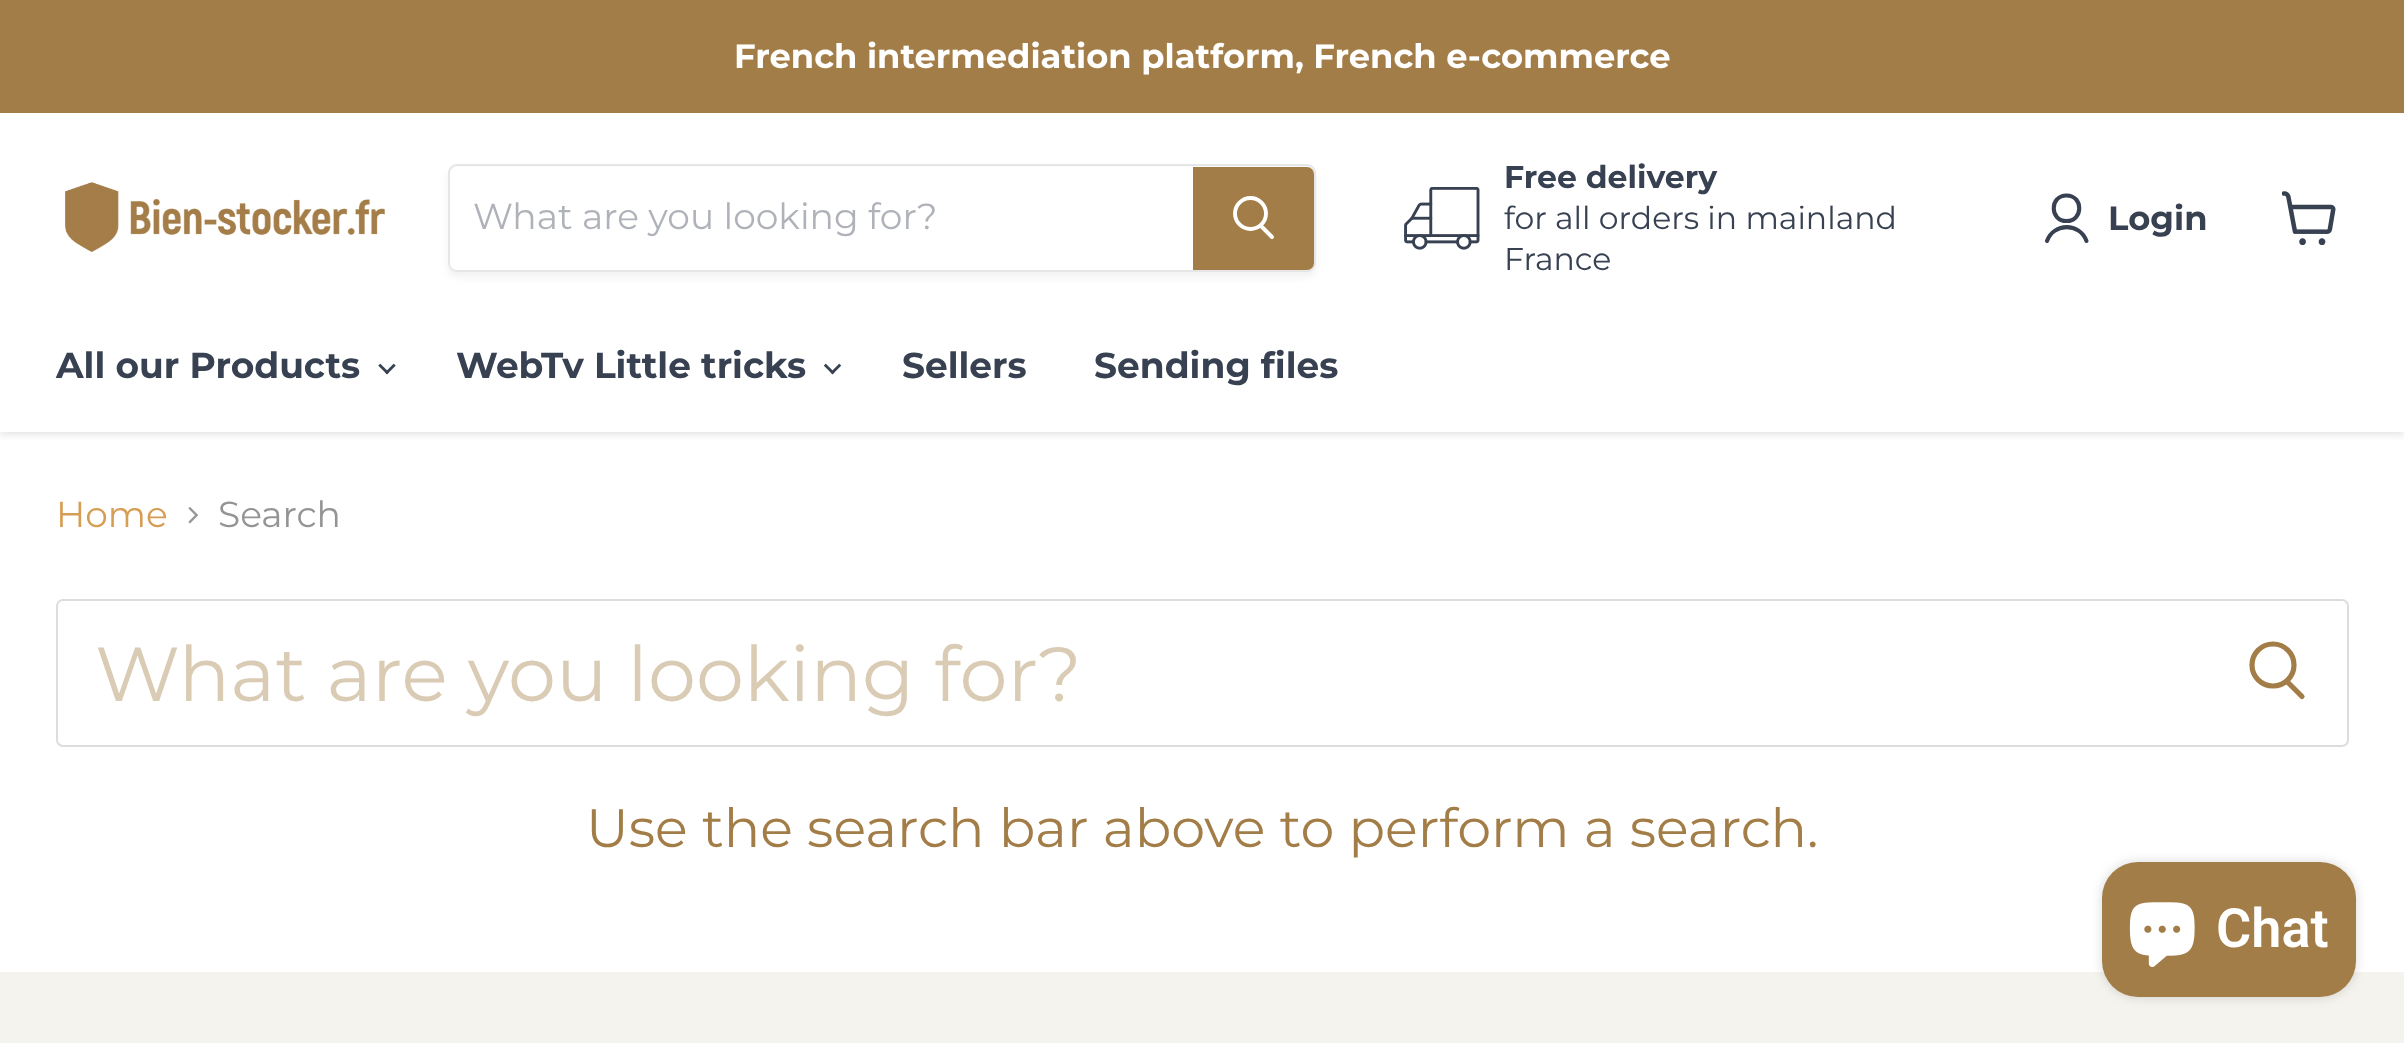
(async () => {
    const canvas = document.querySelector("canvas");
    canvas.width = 2404;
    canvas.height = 1043;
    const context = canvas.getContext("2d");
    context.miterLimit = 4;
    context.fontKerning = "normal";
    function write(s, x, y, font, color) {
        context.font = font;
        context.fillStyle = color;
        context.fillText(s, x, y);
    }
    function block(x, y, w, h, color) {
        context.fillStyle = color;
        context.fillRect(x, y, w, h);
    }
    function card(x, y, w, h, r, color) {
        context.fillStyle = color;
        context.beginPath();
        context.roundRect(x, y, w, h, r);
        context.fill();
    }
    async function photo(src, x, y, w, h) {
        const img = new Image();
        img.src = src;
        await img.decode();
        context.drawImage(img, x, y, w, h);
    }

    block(0, 0, 2404, 1043, "rgb(255, 255, 255)");
    context.save();
    context.beginPath();
    context.rect(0, 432, 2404, 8);
    context.clip();
    context.fillStyle = "rgba(128, 128, 128, 0.25)";
    context.filter = "blur(4.5px)";
    context.beginPath();
    context.rect(0, 115, 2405, 319);
    context.fill();
    context.filter = "none";
    context.restore();
    block(0, 0, 2404, 113, "rgb(163, 125, 71)");
    write("French intermediation platform, French e-commerce", 734, 68, "bold 33.75px Montserrat", "rgb(255, 255, 255)");
    await photo("media/1.png", 65, 182, 320, 70);
    context.fillStyle = "rgba(128, 128, 128, 0.11)";
    context.filter = "blur(3.5px)";
    context.beginPath();
    context.roundRect(448, 169, 868, 108, 9);
    context.fill();
    context.filter = "none";
    context.beginPath();
    context.roundRect(449, 165, 866, 106, 8);
    context.strokeStyle = "rgb(230, 230, 230)";
    context.lineWidth = 2;
    context.stroke();
    context.fillStyle = "rgb(255, 255, 255)";
    context.beginPath();
    context.roundRect(450, 167, 743, 103, [7, 0, 0, 7]);
    context.fill();
    write("What are you looking for?", 473, 229, "36px Montserrat", "rgb(175, 179, 185)");
    context.fillStyle = "rgb(163, 125, 71)";
    context.beginPath();
    context.roundRect(1194, 168, 119, 101, [0, 6, 6, 0]);
    context.fill();
    context.strokeStyle = "rgb(163, 125, 71)";
    context.stroke();
    context.beginPath();
    context.moveTo(1272, 237);
    context.lineTo(1261, 226);
    context.strokeStyle = "rgb(255, 255, 255)";
    context.lineWidth = 3.9;
    context.lineCap = "round";
    context.stroke();
    context.beginPath();
    context.arc(1250.5, 213.5, 15.5, 0, Math.PI * 2);
    context.stroke();
    await photo("media/2.png", 1404, 187, 76, 63);
    write("Free delivery", 1504, 188, "bold 31.5px Montserrat", "rgb(55, 65, 81)");
    write("for all orders in mainland", 1504, 229, "31.5px Montserrat", "rgb(55, 65, 81)");
    write("France", 1504, 270, "31.5px Montserrat", "rgb(55, 65, 81)");
    context.beginPath();
    context.moveTo(2066.5, 221);
    context.bezierCurveTo(2083.5, 221, 2083.5, 195.5, 2066.5, 195.5);
    context.bezierCurveTo(2049.5, 195.5, 2049.5, 221, 2066.5, 221);
    context.closePath();
    context.moveTo(2086.5, 241);
    context.bezierCurveTo(2080, 222.5, 2053.5, 222.5, 2047, 241);
    context.strokeStyle = "rgb(55, 65, 81)";
    context.lineWidth = 4.1;
    context.lineJoin = "round";
    context.stroke();
    write("Login", 2108, 230, "bold 33.75px Montserrat", "rgb(55, 65, 81)");
    await photo("media/3.png", 2282, 191, 54, 54);
    write("All our Products", 56, 378, "bold 36px Montserrat", "rgb(55, 65, 81)");
    await photo("media/4.png", 378, 363, 18, 12);
    write("WebTv Little tricks", 456, 378, "bold 36px Montserrat", "rgb(55, 65, 81)");
    await photo("media/5.png", 824, 363, 18, 12);
    write("Sellers", 902, 378, "bold 36px Montserrat", "rgb(55, 65, 81)");
    write("Sending files", 1094, 378, "bold 36px Montserrat", "rgb(55, 65, 81)");
    write("Home", 56, 527, "36px Montserrat", "rgb(214, 158, 85)");
    await photo("media/6.png", 188, 507, 10, 17);
    write("Search", 218, 527, "36px Montserrat", "rgb(148, 148, 148)");
    context.beginPath();
    context.roundRect(57, 600, 2291, 146, 6);
    context.strokeStyle = "rgb(221, 221, 221)";
    context.lineWidth = 2;
    context.lineJoin = "miter";
    context.stroke();
    write("What are you looking for?", 95, 701, "76.5px Montserrat", "rgb(218, 203, 181)");
    context.beginPath();
    context.moveTo(2302, 696.5);
    context.lineTo(2287.5, 682);
    context.strokeStyle = "rgb(163, 125, 71)";
    context.lineWidth = 5.2;
    context.stroke();
    context.beginPath();
    context.arc(2273, 665, 21, 0, Math.PI * 2);
    context.stroke();
    write("Use the search bar above to perform a search.", 586, 847, "54px Montserrat", "rgb(163, 125, 71)");
    block(0, 972, 2404, 71, "rgb(245, 243, 237)");
    context.fillStyle = "rgba(0, 0, 0, 0.15)";
    context.filter = "blur(5.5px)";
    context.beginPath();
    context.roundRect(2102, 862, 254, 135, 36);
    context.fill();
    context.filter = "none";
    card(2102, 862, 254, 135, 36, "rgb(163, 125, 71)");
    await photo("media/7.png", 2129, 902, 66, 65);
    write("Chat", 2216, 947, "600 54px Roboto", "rgb(255, 255, 255)");
})();
